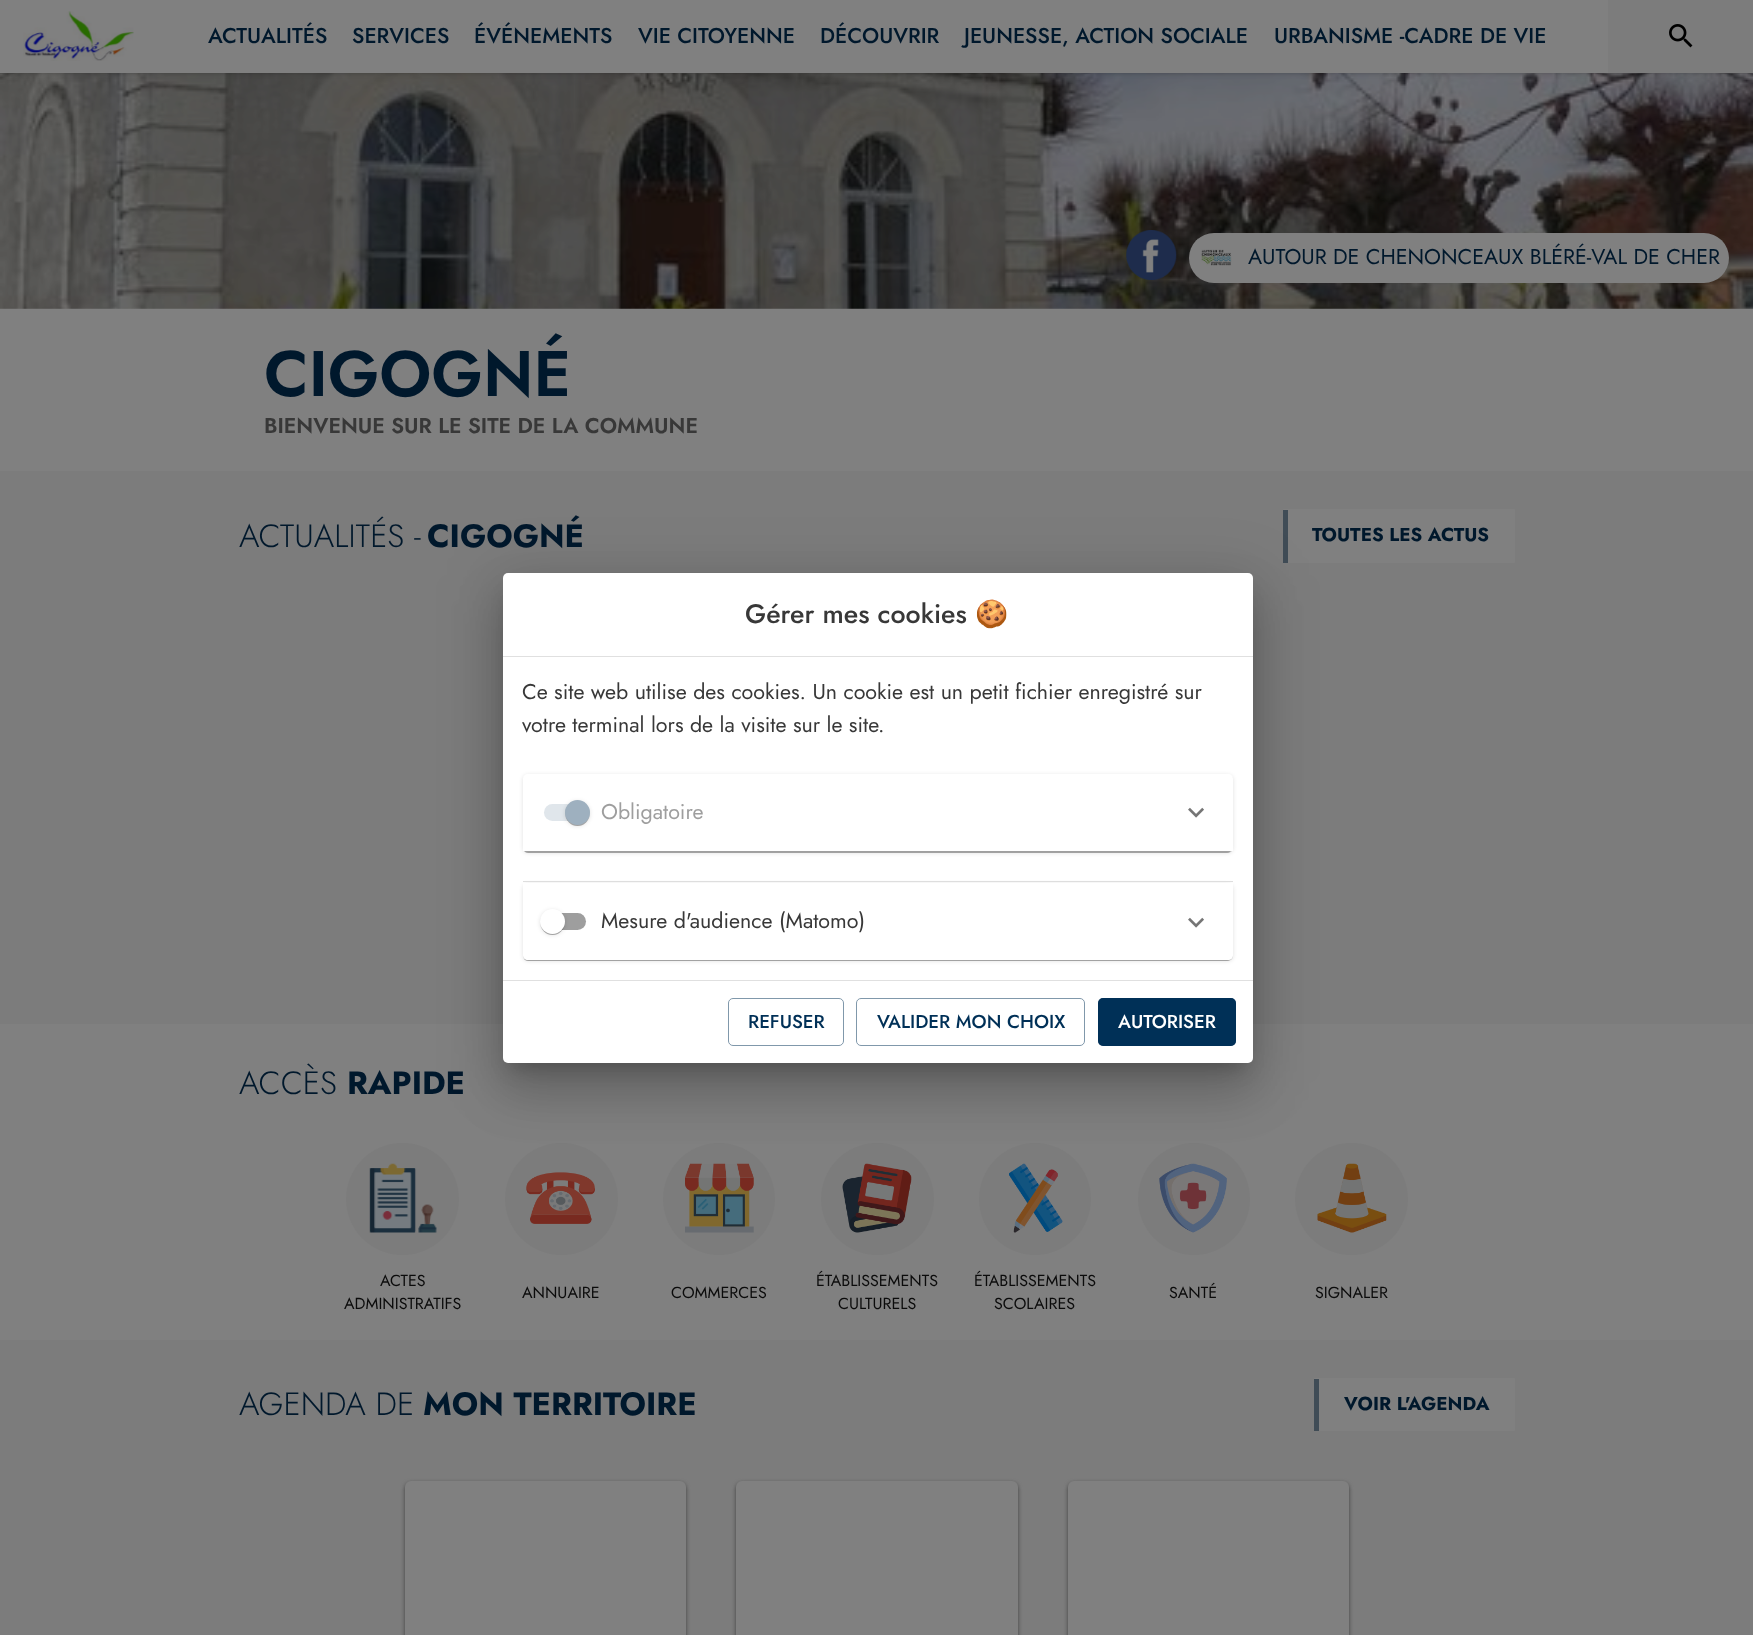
(async () => {
    const canvas = document.querySelector("canvas");
    canvas.width = 1753;
    canvas.height = 1635;
    const context = canvas.getContext("2d");
    context.miterLimit = 4;
    context.fontKerning = "normal";
    function write(s, x, y, font, color) {
        context.font = font;
        context.fillStyle = color;
        context.fillText(s, x, y);
    }
    function block(x, y, w, h, color) {
        context.fillStyle = color;
        context.fillRect(x, y, w, h);
    }
    function card(x, y, w, h, r, color) {
        context.fillStyle = color;
        context.beginPath();
        context.roundRect(x, y, w, h, r);
        context.fill();
    }
    async function photo(src, x, y, w, h) {
        const img = new Image();
        img.src = src;
        await img.decode();
        context.drawImage(img, x, y, w, h);
    }

    block(0, 0, 1753, 1635, "rgb(124, 124, 124)");
    await photo("media/3.png", 0, 73, 1753, 236);
    context.fillStyle = "rgba(0, 0, 0, 0.25)";
    context.filter = "blur(2.5px)";
    context.beginPath();
    context.rect(0, 0, 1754, 73);
    context.fill();
    context.filter = "none";
    block(0, 0, 1608, 73, "rgb(128, 128, 128)");
    await photo("media/1.png", 23, 11, 111, 50);
    write("ACTUALITÉS", 208, 43, "500 21.4px Jost", "rgb(0, 24, 44)");
    write("SERVICES", 352, 43, "500 21.4px Jost", "rgb(0, 24, 44)");
    write("ÉVÉNEMENTS", 474, 43, "500 21.4px Jost", "rgb(0, 24, 44)");
    write("VIE CITOYENNE", 638, 43, "500 21.4px Jost", "rgb(0, 24, 44)");
    write("DÉCOUVRIR", 820, 43, "500 21.4px Jost", "rgb(0, 24, 44)");
    write("JEUNESSE, ACTION SOCIALE", 964, 43, "500 21.4px Jost", "rgb(0, 24, 44)");
    write("URBANISME -CADRE DE VIE", 1274, 43, "500 21.4px Jost", "rgb(0, 24, 44)");
    block(1608, 0, 145, 73, "rgb(124, 124, 124)");
    await photo("media/2.png", 1669, 24, 24, 24);
    await photo("media/4.png", 1126, 230, 51, 50);
    card(1189, 233, 540, 50, 25, "rgb(128, 128, 128)");
    await photo("media/5.png", 1197, 238, 35, 39);
    write("AUTOUR DE CHENONCEAUX BLÉRÉ-VAL DE CHER", 1248, 264, "21.4px Jost", "rgb(0, 24, 44)");
    block(0, 309, 1753, 162, "rgb(128, 128, 128)");
    write("CIGOGNÉ", 264, 396, "600 64.25px Jost", "rgb(0, 24, 44)");
    write("BIENVENUE SUR LE SITE DE LA COMMUNE", 264, 433, "600 21.4px Jost", "rgb(56, 56, 56)");
    write("ACTUALITÉS -", 239, 547, "300 32.25px Jost", "rgb(0, 24, 44)");
    write("CIGOGNÉ", 427, 547, "bold 32.25px Jost", "rgb(0, 24, 44)");
    card(1283, 509, 232, 54, 1, "rgb(128, 128, 128)");
    block(1283, 510, 5, 53, "rgb(64, 76, 86)");
    write("TOUTES LES ACTUS", 1312, 541, "bold 18.75px Jost", "rgb(0, 24, 44)");
    block(0, 1024, 1753, 316, "rgb(128, 128, 128)");
    write("ACCÈS", 239, 1094, "300 32.25px Jost", "rgb(0, 24, 44)");
    write("RAPIDE", 347, 1094, "bold 32.25px Jost", "rgb(0, 24, 44)");
    card(346, 1143, 113, 112, 56, "rgb(124, 124, 124)");
    await photo("media/6.png", 369, 1163, 68, 70);
    write("ACTES", 380, 1286, "16px Jost", "rgb(11, 11, 11)");
    write("ADMINISTRATIFS", 344, 1309, "16px Jost", "rgb(11, 11, 11)");
    card(505, 1143, 113, 112, 56, "rgb(124, 124, 124)");
    await photo("media/7.png", 526, 1172, 69, 52);
    write("ANNUAIRE", 522, 1298, "16px Jost", "rgb(11, 11, 11)");
    context.fillStyle = "rgb(124, 124, 124)";
    context.beginPath();
    context.arc(719, 1199, 56, 0, Math.PI * 2);
    context.fill();
    await photo("media/8.png", 685, 1163, 69, 70);
    write("COMMERCES", 671, 1298, "16px Jost", "rgb(11, 11, 11)");
    card(821, 1143, 113, 112, 56, "rgb(124, 124, 124)");
    await photo("media/9.png", 842, 1163, 70, 70);
    write("ÉTABLISSEMENTS", 816, 1286, "16px Jost", "rgb(11, 11, 11)");
    write("CULTURELS", 838, 1309, "16px Jost", "rgb(11, 11, 11)");
    context.fillStyle = "rgb(124, 124, 124)";
    context.beginPath();
    context.arc(1035, 1199, 56, 0, Math.PI * 2);
    context.fill();
    await photo("media/10.png", 1009, 1163, 54, 70);
    write("ÉTABLISSEMENTS", 974, 1286, "16px Jost", "rgb(11, 11, 11)");
    write("SCOLAIRES", 994, 1309, "16px Jost", "rgb(11, 11, 11)");
    context.fillStyle = "rgb(124, 124, 124)";
    context.beginPath();
    context.arc(1194, 1199, 56, 0, Math.PI * 2);
    context.fill();
    await photo("media/11.png", 1159, 1163, 68, 70);
    write("SANTÉ", 1169, 1298, "16px Jost", "rgb(11, 11, 11)");
    card(1295, 1143, 113, 112, 56, "rgb(124, 124, 124)");
    await photo("media/12.png", 1317, 1163, 70, 70);
    write("SIGNALER", 1315, 1298, "16px Jost", "rgb(11, 11, 11)");
    write("AGENDA DE", 239, 1415, "300 32.25px Jost", "rgb(0, 24, 44)");
    write("MON TERRITOIRE", 423, 1415, "bold 32.25px Jost", "rgb(0, 24, 44)");
    card(1314, 1378, 201, 53, 1, "rgb(128, 128, 128)");
    block(1314, 1379, 5, 52, "rgb(64, 76, 86)");
    write("VOIR L'AGENDA", 1344, 1410, "bold 18.75px Jost", "rgb(0, 24, 44)");
    context.fillStyle = "rgb(64, 64, 64)";
    context.filter = "blur(2px)";
    context.beginPath();
    context.roundRect(405, 1483, 281, 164, 6);
    context.fill();
    context.filter = "none";
    card(405, 1481, 281, 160, 6, "rgb(128, 128, 128)");
    context.fillStyle = "rgb(64, 64, 64)";
    context.filter = "blur(2px)";
    context.beginPath();
    context.roundRect(736, 1483, 282, 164, 6);
    context.fill();
    context.filter = "none";
    card(736, 1481, 282, 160, 6, "rgb(128, 128, 128)");
    context.fillStyle = "rgb(64, 64, 64)";
    context.filter = "blur(2px)";
    context.beginPath();
    context.roundRect(1068, 1483, 281, 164, 6);
    context.fill();
    context.filter = "none";
    card(1068, 1481, 281, 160, 6, "rgb(128, 128, 128)");
    context.fillStyle = "rgba(0, 0, 0, 0.12)";
    context.filter = "blur(29px)";
    context.beginPath();
    context.roundRect(493, 574, 770, 510, 15);
    context.fill();
    context.filter = "none";
    context.fillStyle = "rgba(0, 0, 0, 0.14)";
    context.filter = "blur(24px)";
    context.beginPath();
    context.roundRect(499, 599, 757, 497, 9);
    context.fill();
    context.filter = "none";
    context.fillStyle = "rgba(0, 0, 0, 0.2)";
    context.filter = "blur(9.5px)";
    context.beginPath();
    context.rect(511, 595, 733, 473);
    context.fill();
    context.filter = "none";
    card(503, 573, 750, 490, 5, "rgb(255, 255, 255)");
    write("Gérer mes cookies", 745, 623, "500 26.75px Jost", "rgb(56, 56, 56)");
    write("🍪", 975, 623, "26.75px Noto Color Emoji", "rgb(56, 56, 56)");
    block(503, 656, 750, 1, "rgb(224, 224, 224)");
    block(503, 980, 750, 1, "rgb(224, 224, 224)");
    write("Ce site web utilise des cookies. Un cookie est un petit fichier enregistré sur", 522, 699, "21.4px Jost", "rgb(56, 56, 56)");
    write("votre terminal lors de la visite sur le site.", 522, 732, "21.4px Jost", "rgb(56, 56, 56)");
    context.save();
    context.beginPath();
    context.moveTo(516, 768);
    context.lineTo(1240, 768);
    context.lineTo(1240, 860);
    context.lineTo(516, 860);
    context.closePath();
    context.moveTo(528, 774);
    context.lineTo(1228, 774);
    context.bezierCurveTo(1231, 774, 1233, 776, 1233, 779);
    context.lineTo(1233, 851);
    context.lineTo(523, 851);
    context.lineTo(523, 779);
    context.bezierCurveTo(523, 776, 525, 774, 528, 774);
    context.closePath();
    context.clip("evenodd");
    context.fillStyle = "rgba(0, 0, 0, 0.12)";
    context.filter = "blur(2px)";
    context.beginPath();
    context.roundRect(523, 775, 710, 78, 5);
    context.fill();
    context.filter = "none";
    context.restore();
    context.save();
    context.beginPath();
    context.moveTo(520, 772);
    context.lineTo(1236, 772);
    context.lineTo(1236, 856);
    context.lineTo(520, 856);
    context.closePath();
    context.moveTo(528, 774);
    context.lineTo(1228, 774);
    context.bezierCurveTo(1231, 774, 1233, 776, 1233, 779);
    context.lineTo(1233, 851);
    context.lineTo(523, 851);
    context.lineTo(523, 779);
    context.bezierCurveTo(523, 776, 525, 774, 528, 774);
    context.closePath();
    context.clip("evenodd");
    context.fillStyle = "rgba(0, 0, 0, 0.14)";
    context.filter = "blur(0.5px)";
    context.beginPath();
    context.roundRect(523, 775, 710, 78, 5);
    context.fill();
    context.filter = "none";
    context.restore();
    context.save();
    context.beginPath();
    context.rect(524, 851, 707, 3);
    context.clip();
    context.fillStyle = "rgba(0, 0, 0, 0.2)";
    context.filter = "blur(0.5px)";
    context.beginPath();
    context.roundRect(524, 778, 707, 75, 4);
    context.fill();
    context.filter = "none";
    context.restore();
    card(544, 804, 42, 17, 8.5, "rgb(224, 230, 235)");
    context.fillStyle = "rgba(0, 0, 0, 0.12)";
    context.filter = "blur(2px)";
    context.beginPath();
    context.roundRect(565, 801, 25, 25, 12.5);
    context.fill();
    context.filter = "none";
    context.fillStyle = "rgba(0, 0, 0, 0.14)";
    context.filter = "blur(0.5px)";
    context.beginPath();
    context.roundRect(565, 801, 25, 25, 12.5);
    context.fill();
    context.filter = "none";
    context.fillStyle = "rgba(0, 0, 0, 0.2)";
    context.filter = "blur(0.5px)";
    context.beginPath();
    context.roundRect(566, 804, 23, 22, 11);
    context.fill();
    context.filter = "none";
    context.fillStyle = "rgb(158, 176, 191)";
    context.beginPath();
    context.arc(577.5, 812.5, 12.5, 0, Math.PI * 2);
    context.fill();
    write("Obligatoire", 601, 819, "21.4px Jost", "rgb(158, 158, 158)");
    await photo("media/13.png", 1188, 807, 16, 11);
    context.save();
    context.beginPath();
    context.moveTo(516, 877);
    context.lineTo(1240, 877);
    context.lineTo(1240, 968);
    context.lineTo(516, 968);
    context.closePath();
    context.moveTo(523, 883);
    context.lineTo(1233, 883);
    context.lineTo(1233, 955);
    context.bezierCurveTo(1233, 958, 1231, 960, 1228, 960);
    context.lineTo(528, 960);
    context.bezierCurveTo(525, 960, 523, 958, 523, 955);
    context.closePath();
    context.clip("evenodd");
    context.fillStyle = "rgba(0, 0, 0, 0.12)";
    context.filter = "blur(2px)";
    context.beginPath();
    context.roundRect(523, 884, 710, 77, 5);
    context.fill();
    context.filter = "none";
    context.restore();
    context.save();
    context.beginPath();
    context.moveTo(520, 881);
    context.lineTo(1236, 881);
    context.lineTo(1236, 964);
    context.lineTo(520, 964);
    context.closePath();
    context.moveTo(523, 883);
    context.lineTo(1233, 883);
    context.lineTo(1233, 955);
    context.bezierCurveTo(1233, 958, 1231, 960, 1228, 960);
    context.lineTo(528, 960);
    context.bezierCurveTo(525, 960, 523, 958, 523, 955);
    context.closePath();
    context.clip("evenodd");
    context.fillStyle = "rgba(0, 0, 0, 0.14)";
    context.filter = "blur(0.5px)";
    context.beginPath();
    context.roundRect(523, 884, 710, 77, 5);
    context.fill();
    context.filter = "none";
    context.restore();
    context.save();
    context.beginPath();
    context.moveTo(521, 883);
    context.lineTo(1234, 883);
    context.lineTo(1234, 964);
    context.lineTo(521, 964);
    context.closePath();
    context.moveTo(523, 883);
    context.lineTo(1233, 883);
    context.lineTo(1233, 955);
    context.bezierCurveTo(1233, 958, 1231, 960, 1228, 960);
    context.lineTo(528, 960);
    context.bezierCurveTo(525, 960, 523, 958, 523, 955);
    context.closePath();
    context.clip("evenodd");
    context.fillStyle = "rgba(0, 0, 0, 0.2)";
    context.filter = "blur(0.5px)";
    context.beginPath();
    context.roundRect(524, 886, 707, 75, 4);
    context.fill();
    context.filter = "none";
    context.restore();
    block(523, 881, 710, 1, "rgb(222, 222, 222)");
    card(544, 913, 42, 17, 8.5, "rgb(158, 158, 158)");
    context.fillStyle = "rgba(0, 0, 0, 0.12)";
    context.filter = "blur(2px)";
    context.beginPath();
    context.roundRect(540, 910, 25, 25, 12.5);
    context.fill();
    context.filter = "none";
    context.fillStyle = "rgba(0, 0, 0, 0.14)";
    context.filter = "blur(0.5px)";
    context.beginPath();
    context.roundRect(540, 910, 25, 25, 12.5);
    context.fill();
    context.filter = "none";
    context.fillStyle = "rgba(0, 0, 0, 0.2)";
    context.filter = "blur(0.5px)";
    context.beginPath();
    context.roundRect(541, 913, 23, 22, 11);
    context.fill();
    context.filter = "none";
    context.fillStyle = "rgb(255, 255, 255)";
    context.beginPath();
    context.arc(552.5, 921.5, 12.5, 0, Math.PI * 2);
    context.fill();
    write("Mesure d'audience (Matomo)", 601, 928, "21.4px Jost", "rgb(56, 56, 56)");
    await photo("media/13.png", 1188, 917, 16, 11);
    context.beginPath();
    context.roundRect(728.5, 998.5, 115, 47, 4.5);
    context.strokeStyle = "rgb(128, 152, 171)";
    context.stroke();
    write("REFUSER", 748, 1028, "500 18.75px Jost", "rgb(0, 48, 87)");
    context.beginPath();
    context.roundRect(856.5, 998.5, 228, 47, 4.5);
    context.stroke();
    write("VALIDER MON CHOIX", 877, 1028, "500 18.75px Jost", "rgb(0, 48, 87)");
    card(1098, 998, 138, 48, 5, "rgb(0, 48, 87)");
    context.beginPath();
    context.roundRect(1098.5, 998.5, 137, 47, 4.5);
    context.strokeStyle = "rgba(0, 48, 87, 0.5)";
    context.stroke();
    write("AUTORISER", 1118, 1028, "500 18.75px Jost", "rgb(255, 255, 255)");
})();
